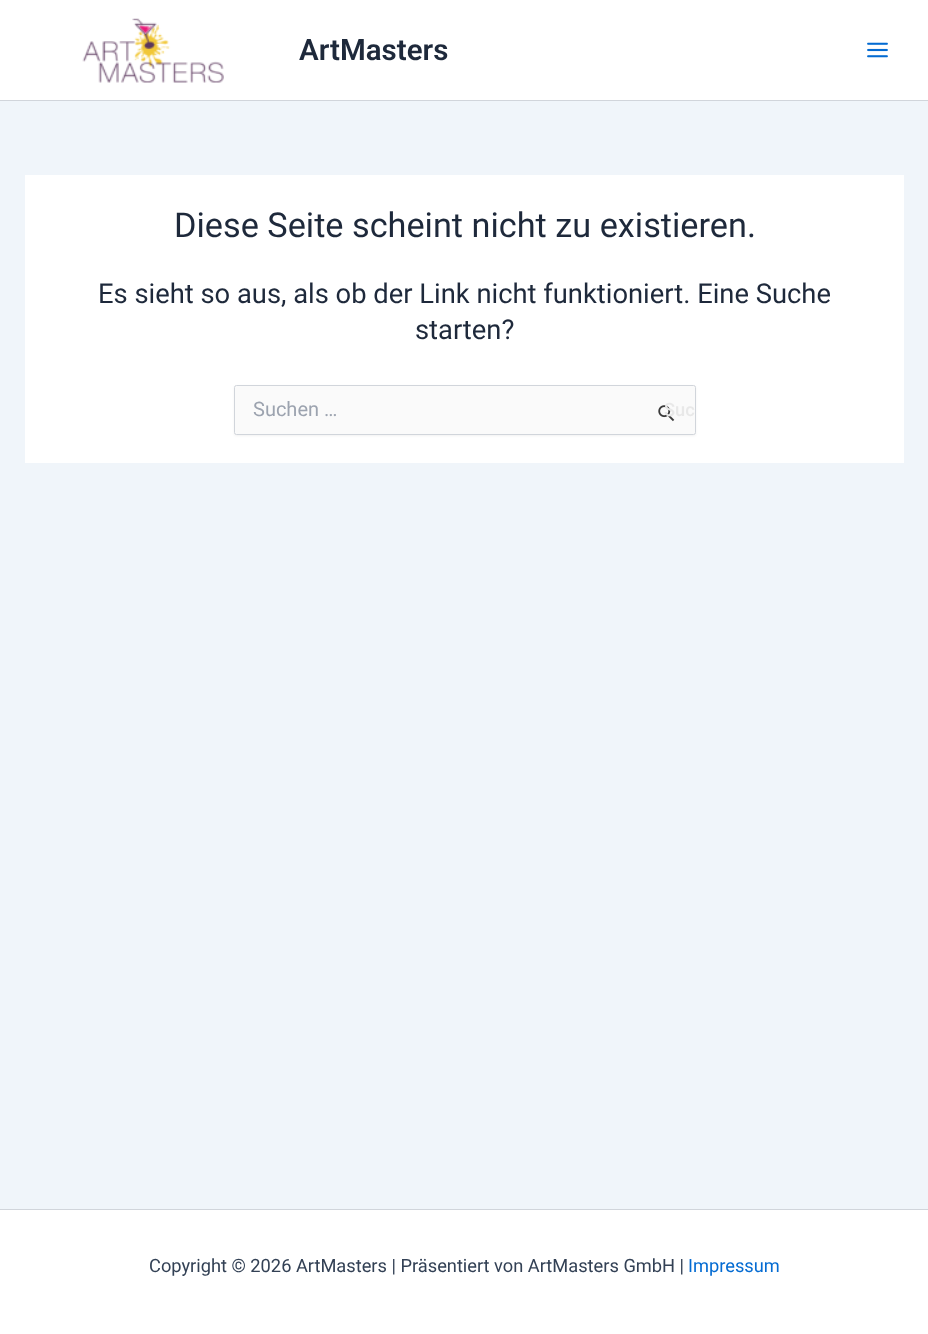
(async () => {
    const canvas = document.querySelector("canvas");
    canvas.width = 928;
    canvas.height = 1334;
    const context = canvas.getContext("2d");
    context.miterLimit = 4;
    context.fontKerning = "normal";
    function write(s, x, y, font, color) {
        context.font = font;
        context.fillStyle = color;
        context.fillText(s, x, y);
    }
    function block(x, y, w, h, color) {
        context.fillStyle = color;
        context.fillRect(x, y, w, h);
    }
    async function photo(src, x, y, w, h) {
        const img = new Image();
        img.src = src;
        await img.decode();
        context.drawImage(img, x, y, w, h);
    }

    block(0, 0, 928, 1334, "rgb(240, 245, 250)");
    block(0, 0, 928, 100, "rgb(255, 255, 255)");
    block(0, 100, 928, 1, "rgb(209, 213, 219)");
    await photo("media/1.png", 82, 18, 142, 65);
    write("ArtMasters", 299, 60, "600 29.5px Roboto", "rgb(30, 41, 59)");
    await photo("media/2.png", 867, 42, 21, 16);
    block(25, 175, 879, 288, "rgb(255, 255, 255)");
    write("Diese Seite scheint nicht zu existieren.", 174, 237, "34.25px Roboto", "rgb(30, 41, 59)");
    write("Es sieht so aus, als ob der Link nicht funktioniert. Eine Suche", 98, 303, "27.35px Roboto", "rgb(30, 41, 59)");
    write("starten?", 415, 339, "27.35px Roboto", "rgb(30, 41, 59)");
    context.fillStyle = "rgba(0, 0, 0, 0.05)";
    context.filter = "blur(1px)";
    context.beginPath();
    context.roundRect(234, 386, 462, 50, 2.5);
    context.fill();
    context.filter = "none";
    context.fillStyle = "rgb(250, 250, 250)";
    context.beginPath();
    context.roundRect(234.5, 385.5, 461, 49, 2);
    context.fill();
    context.strokeStyle = "rgb(209, 213, 219)";
    context.stroke();
    write("Suchen …", 253, 416, "20px Roboto", "rgb(156, 163, 175)");
    await photo("media/3.png", 658, 405, 17, 17);
    write("Suc", 664, 416, "500 18.25px Roboto", "rgb(232, 232, 232)");
    block(0, 1210, 928, 124, "rgb(255, 255, 255)");
    block(0, 1209, 928, 1, "rgb(209, 213, 219)");
    write("Copyright © 2026 ArtMasters | Präsentiert von ArtMasters GmbH |", 149, 1272, "18.25px Roboto", "rgb(51, 65, 85)");
    write("Impressum", 688, 1272, "18.25px Roboto", "rgb(4, 107, 210)");
})();
